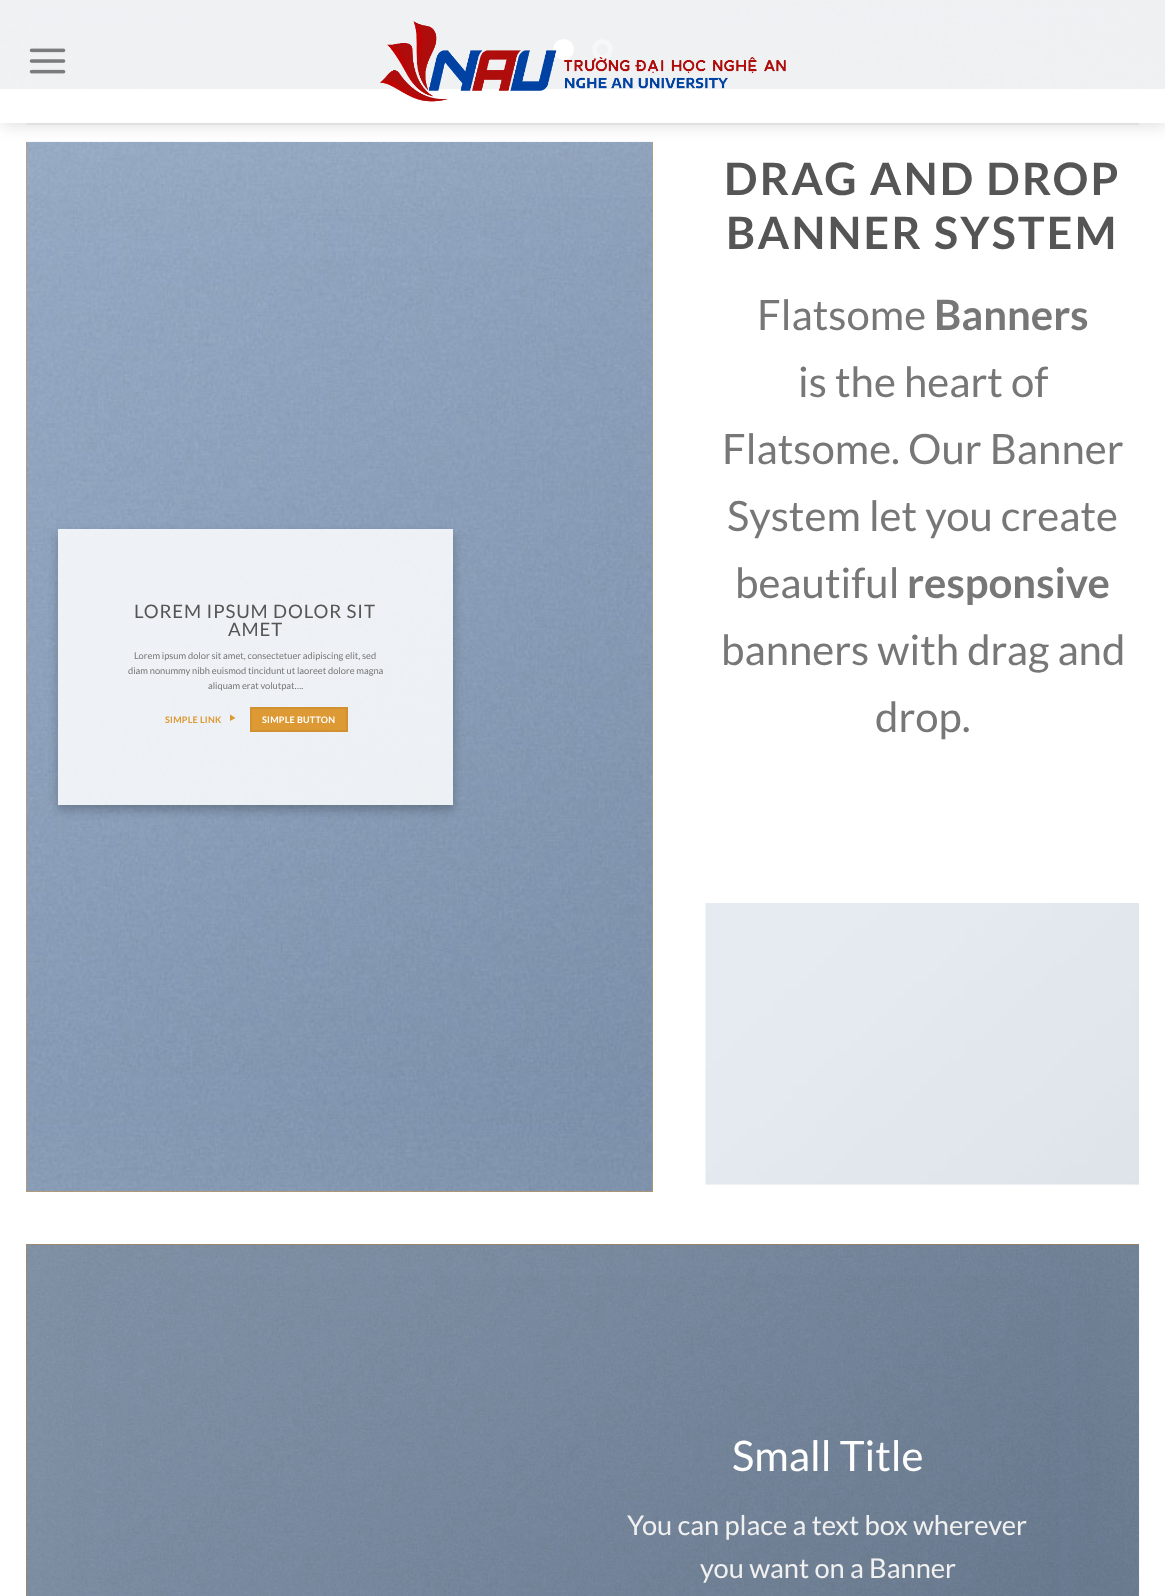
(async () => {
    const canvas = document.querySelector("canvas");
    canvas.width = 1165;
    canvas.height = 1596;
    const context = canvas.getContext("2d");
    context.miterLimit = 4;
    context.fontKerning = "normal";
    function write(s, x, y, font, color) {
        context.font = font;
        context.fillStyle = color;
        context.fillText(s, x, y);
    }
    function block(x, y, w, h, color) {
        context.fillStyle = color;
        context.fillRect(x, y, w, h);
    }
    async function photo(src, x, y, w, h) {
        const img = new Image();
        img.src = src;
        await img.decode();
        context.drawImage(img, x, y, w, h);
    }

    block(0, 0, 1165, 1596, "rgb(255, 255, 255)");
    await photo("media/3.png", 0, 0, 1165, 89);
    context.beginPath();
    context.arc(563.5, 49.5, 8, 0, Math.PI * 2);
    context.fill();
    context.strokeStyle = "rgb(255, 255, 255)";
    context.lineWidth = 5;
    context.stroke();
    context.beginPath();
    context.arc(602.5, 49.5, 8, 0, Math.PI * 2);
    context.strokeStyle = "rgba(255, 255, 255, 0.4)";
    context.stroke();
    block(26, 142, 627, 1050, "rgb(221, 153, 51)");
    await photo("media/4.png", 26, 141, 627, 1051);
    context.save();
    context.beginPath();
    context.moveTo(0, 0);
    context.lineTo(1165, 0);
    context.lineTo(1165, 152);
    context.lineTo(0, 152);
    context.closePath();
    context.moveTo(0, 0);
    context.lineTo(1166, 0);
    context.lineTo(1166, 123);
    context.lineTo(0, 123);
    context.closePath();
    context.clip("evenodd");
    context.fillStyle = "rgba(0, 0, 0, 0.15)";
    context.filter = "blur(9px)";
    context.beginPath();
    context.rect(2, 2, 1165, 122);
    context.fill();
    context.filter = "none";
    context.restore();
    block(0, 0, 1165, 123, "rgba(255, 255, 255, 0.9)");
    await photo("media/1.png", 29, 48, 37, 26);
    await photo("media/2.png", 380, 21, 406, 81);
    block(26, 123, 1113, 2, "rgb(224, 224, 224)");
    context.save();
    context.beginPath();
    context.moveTo(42, 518);
    context.lineTo(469, 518);
    context.lineTo(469, 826);
    context.lineTo(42, 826);
    context.closePath();
    context.moveTo(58, 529);
    context.lineTo(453, 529);
    context.lineTo(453, 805);
    context.lineTo(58, 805);
    context.closePath();
    context.clip("evenodd");
    context.fillStyle = "rgba(0, 0, 0, 0.23)";
    context.filter = "blur(5px)";
    context.beginPath();
    context.rect(58, 534, 395, 276);
    context.fill();
    context.filter = "none";
    context.restore();
    block(58, 529, 395, 276, "rgba(255, 255, 255, 0.85)");
    context.letterSpacing = "0.9px";
    write("LOREM IPSUM DOLOR SIT", 134, 618, "18.6px Lato", "rgb(85, 85, 85)");
    write("AMET", 228, 636, "18.6px Lato", "rgb(85, 85, 85)");
    context.letterSpacing = "0px";
    write("Lorem ipsum dolor sit amet, consectetuer adipiscing elit, sed", 134, 659, "9.3px Lato", "rgb(119, 119, 119)");
    write("diam nonummy nibh euismod tincidunt ut laoreet dolore magna", 128, 674, "9.3px Lato", "rgb(119, 119, 119)");
    write("aliquam erat volutpat….", 208, 689, "9.3px Lato", "rgb(119, 119, 119)");
    context.letterSpacing = "0.25px";
    write("SIMPLE LINK", 165, 723, "bold 9px Lato", "rgb(221, 153, 51)");
    context.beginPath();
    context.moveTo(230, 714.5);
    context.lineTo(235.5, 718);
    context.lineTo(230, 721);
    context.closePath();
    context.fill();
    context.beginPath();
    context.rect(251, 708, 96, 23);
    context.fill();
    context.strokeStyle = "rgb(210, 145, 48)";
    context.lineWidth = 2;
    context.stroke();
    write("SIMPLE BUTTON", 262, 723, "bold 9px Lato", "rgb(255, 255, 255)");
    context.letterSpacing = "2.25px";
    write("DRAG AND DROP", 724, 195, "bold 44.75px Lato", "rgb(85, 85, 85)");
    write("BANNER SYSTEM", 726, 249, "bold 44.75px Lato", "rgb(85, 85, 85)");
    context.letterSpacing = "0px";
    write("Flatsome", 757, 330, "41.9px Lato", "rgb(119, 119, 119)");
    write("Banners", 934, 330, "bold 41.9px Lato", "rgb(119, 119, 119)");
    write("is the heart of", 798, 397, "41.9px Lato", "rgb(119, 119, 119)");
    write("Flatsome. Our Banner", 722, 464, "41.9px Lato", "rgb(119, 119, 119)");
    write("System let you create", 727, 531, "41.9px Lato", "rgb(119, 119, 119)");
    write("beautiful", 735, 598, "41.9px Lato", "rgb(119, 119, 119)");
    write("responsive", 907, 598, "bold 41.9px Lato", "rgb(119, 119, 119)");
    write("banners with drag and", 721, 665, "41.9px Lato", "rgb(119, 119, 119)");
    write("drop.", 875, 732, "41.9px Lato", "rgb(119, 119, 119)");
    await photo("media/5.png", 705, 903, 434, 282);
    block(26, 1244, 1113, 352, "rgb(185, 129, 45)");
    await photo("media/6.png", 26, 1244, 1114, 352);
    write("Small Title", 732, 1471, "42px Lato", "rgb(255, 255, 255)");
    write("You can place a text box wherever", 627, 1535, "27.25px Lato", "rgb(241, 241, 241)");
    write("you want on a Banner", 700, 1578, "27.25px Lato", "rgb(241, 241, 241)");
})();
